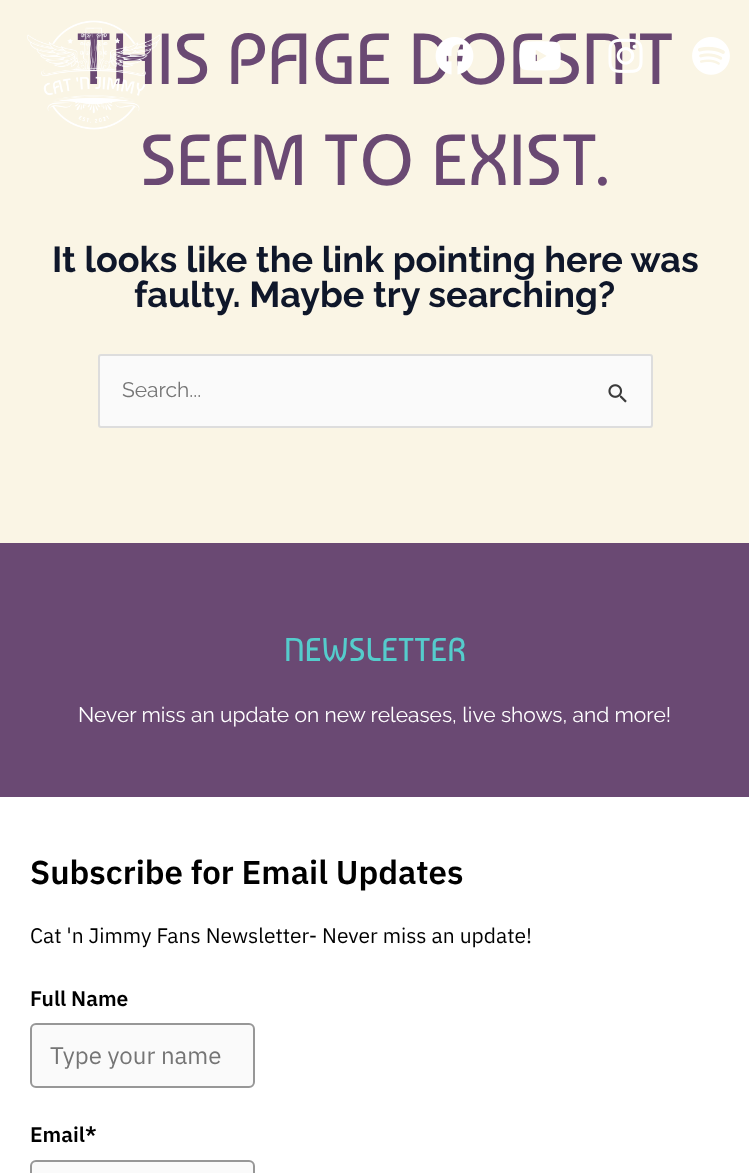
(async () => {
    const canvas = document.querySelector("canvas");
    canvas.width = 749;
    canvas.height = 1173;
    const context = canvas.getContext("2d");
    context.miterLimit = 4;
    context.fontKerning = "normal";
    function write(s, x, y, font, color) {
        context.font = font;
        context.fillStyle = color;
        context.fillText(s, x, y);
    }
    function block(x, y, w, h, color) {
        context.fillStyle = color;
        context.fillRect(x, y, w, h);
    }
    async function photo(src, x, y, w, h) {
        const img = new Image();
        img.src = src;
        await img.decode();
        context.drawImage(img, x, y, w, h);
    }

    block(0, 0, 749, 1173, "rgb(250, 245, 229)");
    write("THIS PAGE DOESN'T", 76, 84, "72px Baumans", "rgb(106, 73, 115)");
    await photo("media/1.png", 27, 20, 134, 110);
    await photo("media/2.png", 435, 37, 39, 38);
    await photo("media/3.png", 519, 41, 42, 30);
    await photo("media/4.png", 608, 38, 35, 35);
    await photo("media/5.png", 692, 37, 38, 38);
    write("SEEM TO EXIST.", 140, 185, "72px Baumans", "rgb(106, 73, 115)");
    write("It looks like the link pointing here was", 52, 272, "bold 36px Raleway", "rgb(15, 23, 42)");
    write("faulty. Maybe try searching?", 134, 307, "bold 36px Raleway", "rgb(15, 23, 42)");
    context.fillStyle = "rgb(250, 250, 250)";
    context.beginPath();
    context.roundRect(99, 355, 553, 72, 2);
    context.fill();
    context.strokeStyle = "rgb(221, 221, 221)";
    context.lineWidth = 2;
    context.stroke();
    write("Search...", 122, 397, "21px Raleway", "rgb(117, 117, 117)");
    await photo("media/6.png", 608, 384, 19, 19);
    block(0, 543, 749, 254, "rgb(106, 73, 115)");
    write("NEWSLETTER", 284, 661, "33px Baumans", "rgb(85, 204, 204)");
    write("Never miss an update on new releases, live shows, and more!", 78, 722, "21px Raleway", "rgb(255, 255, 255)");
    block(0, 797, 749, 376, "rgb(255, 255, 255)");
    write("Subscribe for Email Updates", 30, 884, "600 33px IBM Plex Sans", "rgb(0, 0, 0)");
    write("Cat 'n Jimmy Fans Newsletter- Never miss an update!", 30, 943, "21px IBM Plex Sans", "rgb(0, 0, 0)");
    write("Full Name", 30, 1006, "600 21px IBM Plex Sans", "rgb(0, 0, 0)");
    context.fillStyle = "rgb(250, 250, 250)";
    context.beginPath();
    context.roundRect(31, 1024, 223, 63, 5);
    context.fill();
    context.strokeStyle = "rgb(151, 151, 151)";
    context.stroke();
    write("Type your name", 50, 1064, "24px IBM Plex Sans", "rgb(117, 117, 117)");
    write("Email*", 30, 1142, "600 21px IBM Plex Sans", "rgb(0, 0, 0)");
    context.fillStyle = "rgb(250, 250, 250)";
    context.beginPath();
    context.roundRect(31, 1161, 223, 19, 5);
    context.fill();
    context.stroke();
})();
